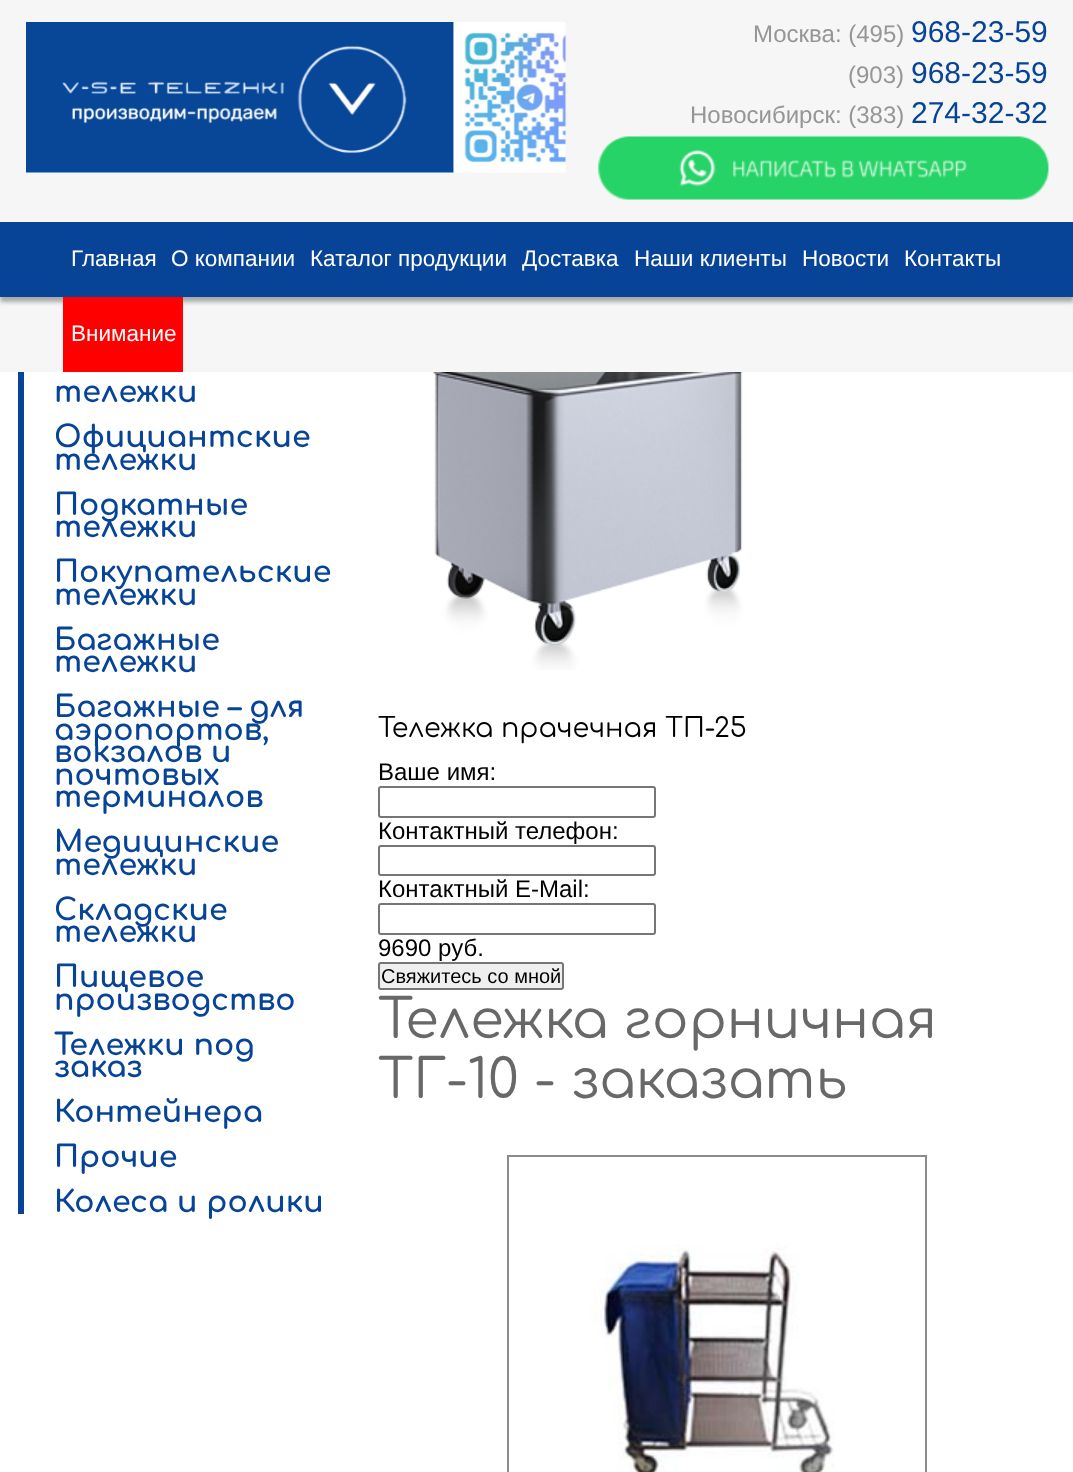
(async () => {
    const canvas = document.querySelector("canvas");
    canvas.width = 1073;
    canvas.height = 1472;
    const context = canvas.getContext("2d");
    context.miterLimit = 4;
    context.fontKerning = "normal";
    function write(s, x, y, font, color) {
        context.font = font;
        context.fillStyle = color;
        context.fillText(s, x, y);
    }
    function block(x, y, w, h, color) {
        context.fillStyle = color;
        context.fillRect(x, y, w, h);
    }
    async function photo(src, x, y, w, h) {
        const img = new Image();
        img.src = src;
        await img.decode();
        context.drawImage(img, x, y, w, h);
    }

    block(0, 0, 1073, 1472, "rgb(255, 255, 255)");
    block(0, 0, 1073, 372, "rgb(246, 246, 246)");
    await photo("media/1.png", 26, 22, 541, 151);
    write("Москва: (495)", 753, 42, "24px Liberation Sans", "rgb(150, 150, 150)");
    write("968-23-59", 911, 42, "30px Liberation Sans", "rgb(7, 68, 151)");
    write("(903)", 848, 83, "24px Liberation Sans", "rgb(150, 150, 150)");
    write("968-23-59", 911, 83, "30px Liberation Sans", "rgb(7, 68, 151)");
    write("Новосибирск: (383)", 690, 123, "24px Liberation Sans", "rgb(150, 150, 150)");
    write("274-32-32", 911, 123, "30px Liberation Sans", "rgb(7, 68, 151)");
    await photo("media/2.png", 598, 136, 451, 64);
    context.fillStyle = "rgb(168, 168, 168)";
    context.filter = "blur(2px)";
    context.beginPath();
    context.rect(0, 227, 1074, 75);
    context.fill();
    context.filter = "none";
    block(0, 222, 1073, 75, "rgb(7, 68, 151)");
    write("Главная", 71, 266, "22.5px Liberation Sans", "rgb(255, 255, 255)");
    write("О компании", 171, 266, "22.5px Liberation Sans", "rgb(255, 255, 255)");
    write("Каталог продукции", 310, 266, "22.5px Liberation Sans", "rgb(255, 255, 255)");
    write("Доставка", 522, 266, "22.5px Liberation Sans", "rgb(255, 255, 255)");
    write("Наши клиенты", 634, 266, "22.5px Liberation Sans", "rgb(255, 255, 255)");
    write("Новости", 802, 266, "22.5px Liberation Sans", "rgb(255, 255, 255)");
    write("Контакты", 904, 266, "22.5px Liberation Sans", "rgb(255, 255, 255)");
    block(63, 297, 120, 75, "rgb(255, 0, 0)");
    write("Внимание", 71, 341, "22.5px Liberation Sans", "rgb(255, 255, 255)");
    block(18, 372, 6, 842, "rgb(7, 68, 151)");
    write("тележки", 54, 402, "bold 30px Comfortaa", "rgb(7, 68, 151)");
    write("Официантские", 54, 447, "bold 30px Comfortaa", "rgb(7, 68, 151)");
    write("тележки", 54, 470, "bold 30px Comfortaa", "rgb(7, 68, 151)");
    write("Подкатные", 54, 515, "bold 30px Comfortaa", "rgb(7, 68, 151)");
    write("тележки", 54, 537, "bold 30px Comfortaa", "rgb(7, 68, 151)");
    write("Покупательские", 54, 582, "bold 30px Comfortaa", "rgb(7, 68, 151)");
    write("тележки", 54, 605, "bold 30px Comfortaa", "rgb(7, 68, 151)");
    write("Багажные", 54, 650, "bold 30px Comfortaa", "rgb(7, 68, 151)");
    write("тележки", 54, 672, "bold 30px Comfortaa", "rgb(7, 68, 151)");
    write("Багажные – для", 54, 717, "bold 30px Comfortaa", "rgb(7, 68, 151)");
    write("аэропортов,", 54, 740, "bold 30px Comfortaa", "rgb(7, 68, 151)");
    write("вокзалов и", 54, 762, "bold 30px Comfortaa", "rgb(7, 68, 151)");
    write("почтовых", 54, 785, "bold 30px Comfortaa", "rgb(7, 68, 151)");
    write("терминалов", 54, 807, "bold 30px Comfortaa", "rgb(7, 68, 151)");
    write("Медицинские", 54, 852, "bold 30px Comfortaa", "rgb(7, 68, 151)");
    write("тележки", 54, 875, "bold 30px Comfortaa", "rgb(7, 68, 151)");
    write("Складские", 54, 920, "bold 30px Comfortaa", "rgb(7, 68, 151)");
    write("тележки", 54, 942, "bold 30px Comfortaa", "rgb(7, 68, 151)");
    write("Пищевое", 54, 987, "bold 30px Comfortaa", "rgb(7, 68, 151)");
    write("производство", 54, 1010, "bold 30px Comfortaa", "rgb(7, 68, 151)");
    write("Тележки под", 54, 1055, "bold 30px Comfortaa", "rgb(7, 68, 151)");
    write("заказ", 54, 1077, "bold 30px Comfortaa", "rgb(7, 68, 151)");
    write("Контейнера", 54, 1122, "bold 30px Comfortaa", "rgb(7, 68, 151)");
    write("Прочие", 54, 1167, "bold 30px Comfortaa", "rgb(7, 68, 151)");
    write("Колеса и ролики", 54, 1212, "bold 30px Comfortaa", "rgb(7, 68, 151)");
    await photo("media/3.png", 432, 372, 312, 298);
    write("Тележка прачечная ТП-25", 378, 737, "27px Comfortaa", "rgb(0, 0, 0)");
    write("Ваше имя:", 378, 780, "24px Liberation Sans", "rgb(0, 0, 0)");
    context.beginPath();
    context.roundRect(379, 787, 276, 30, 2);
    context.strokeStyle = "rgb(118, 118, 118)";
    context.lineWidth = 2;
    context.stroke();
    write("Контактный телефон:", 378, 839, "24px Liberation Sans", "rgb(0, 0, 0)");
    context.beginPath();
    context.roundRect(379, 846, 276, 29, 2);
    context.stroke();
    write("Контактный E-Mail:", 378, 897, "24px Liberation Sans", "rgb(0, 0, 0)");
    context.beginPath();
    context.roundRect(379, 904, 276, 30, 2);
    context.stroke();
    write("9690 руб.", 378, 956, "24px Liberation Sans", "rgb(0, 0, 0)");
    context.fillStyle = "rgb(239, 239, 239)";
    context.beginPath();
    context.roundRect(379, 963, 184, 26, 2);
    context.fill();
    context.stroke();
    write("Свяжитесь со мной", 381, 983, "20px Liberation Sans", "rgb(0, 0, 0)");
    write("Тележка горничная", 378, 1038, "54px Comfortaa", "rgb(104, 104, 104)");
    write("ТГ-10 - заказать", 378, 1098, "54px Comfortaa", "rgb(104, 104, 104)");
    context.strokeStyle = "rgb(140, 140, 140)";
    context.strokeRect(508, 1156, 418, 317);
    await photo("media/4.png", 590, 1244, 245, 228);
})();
